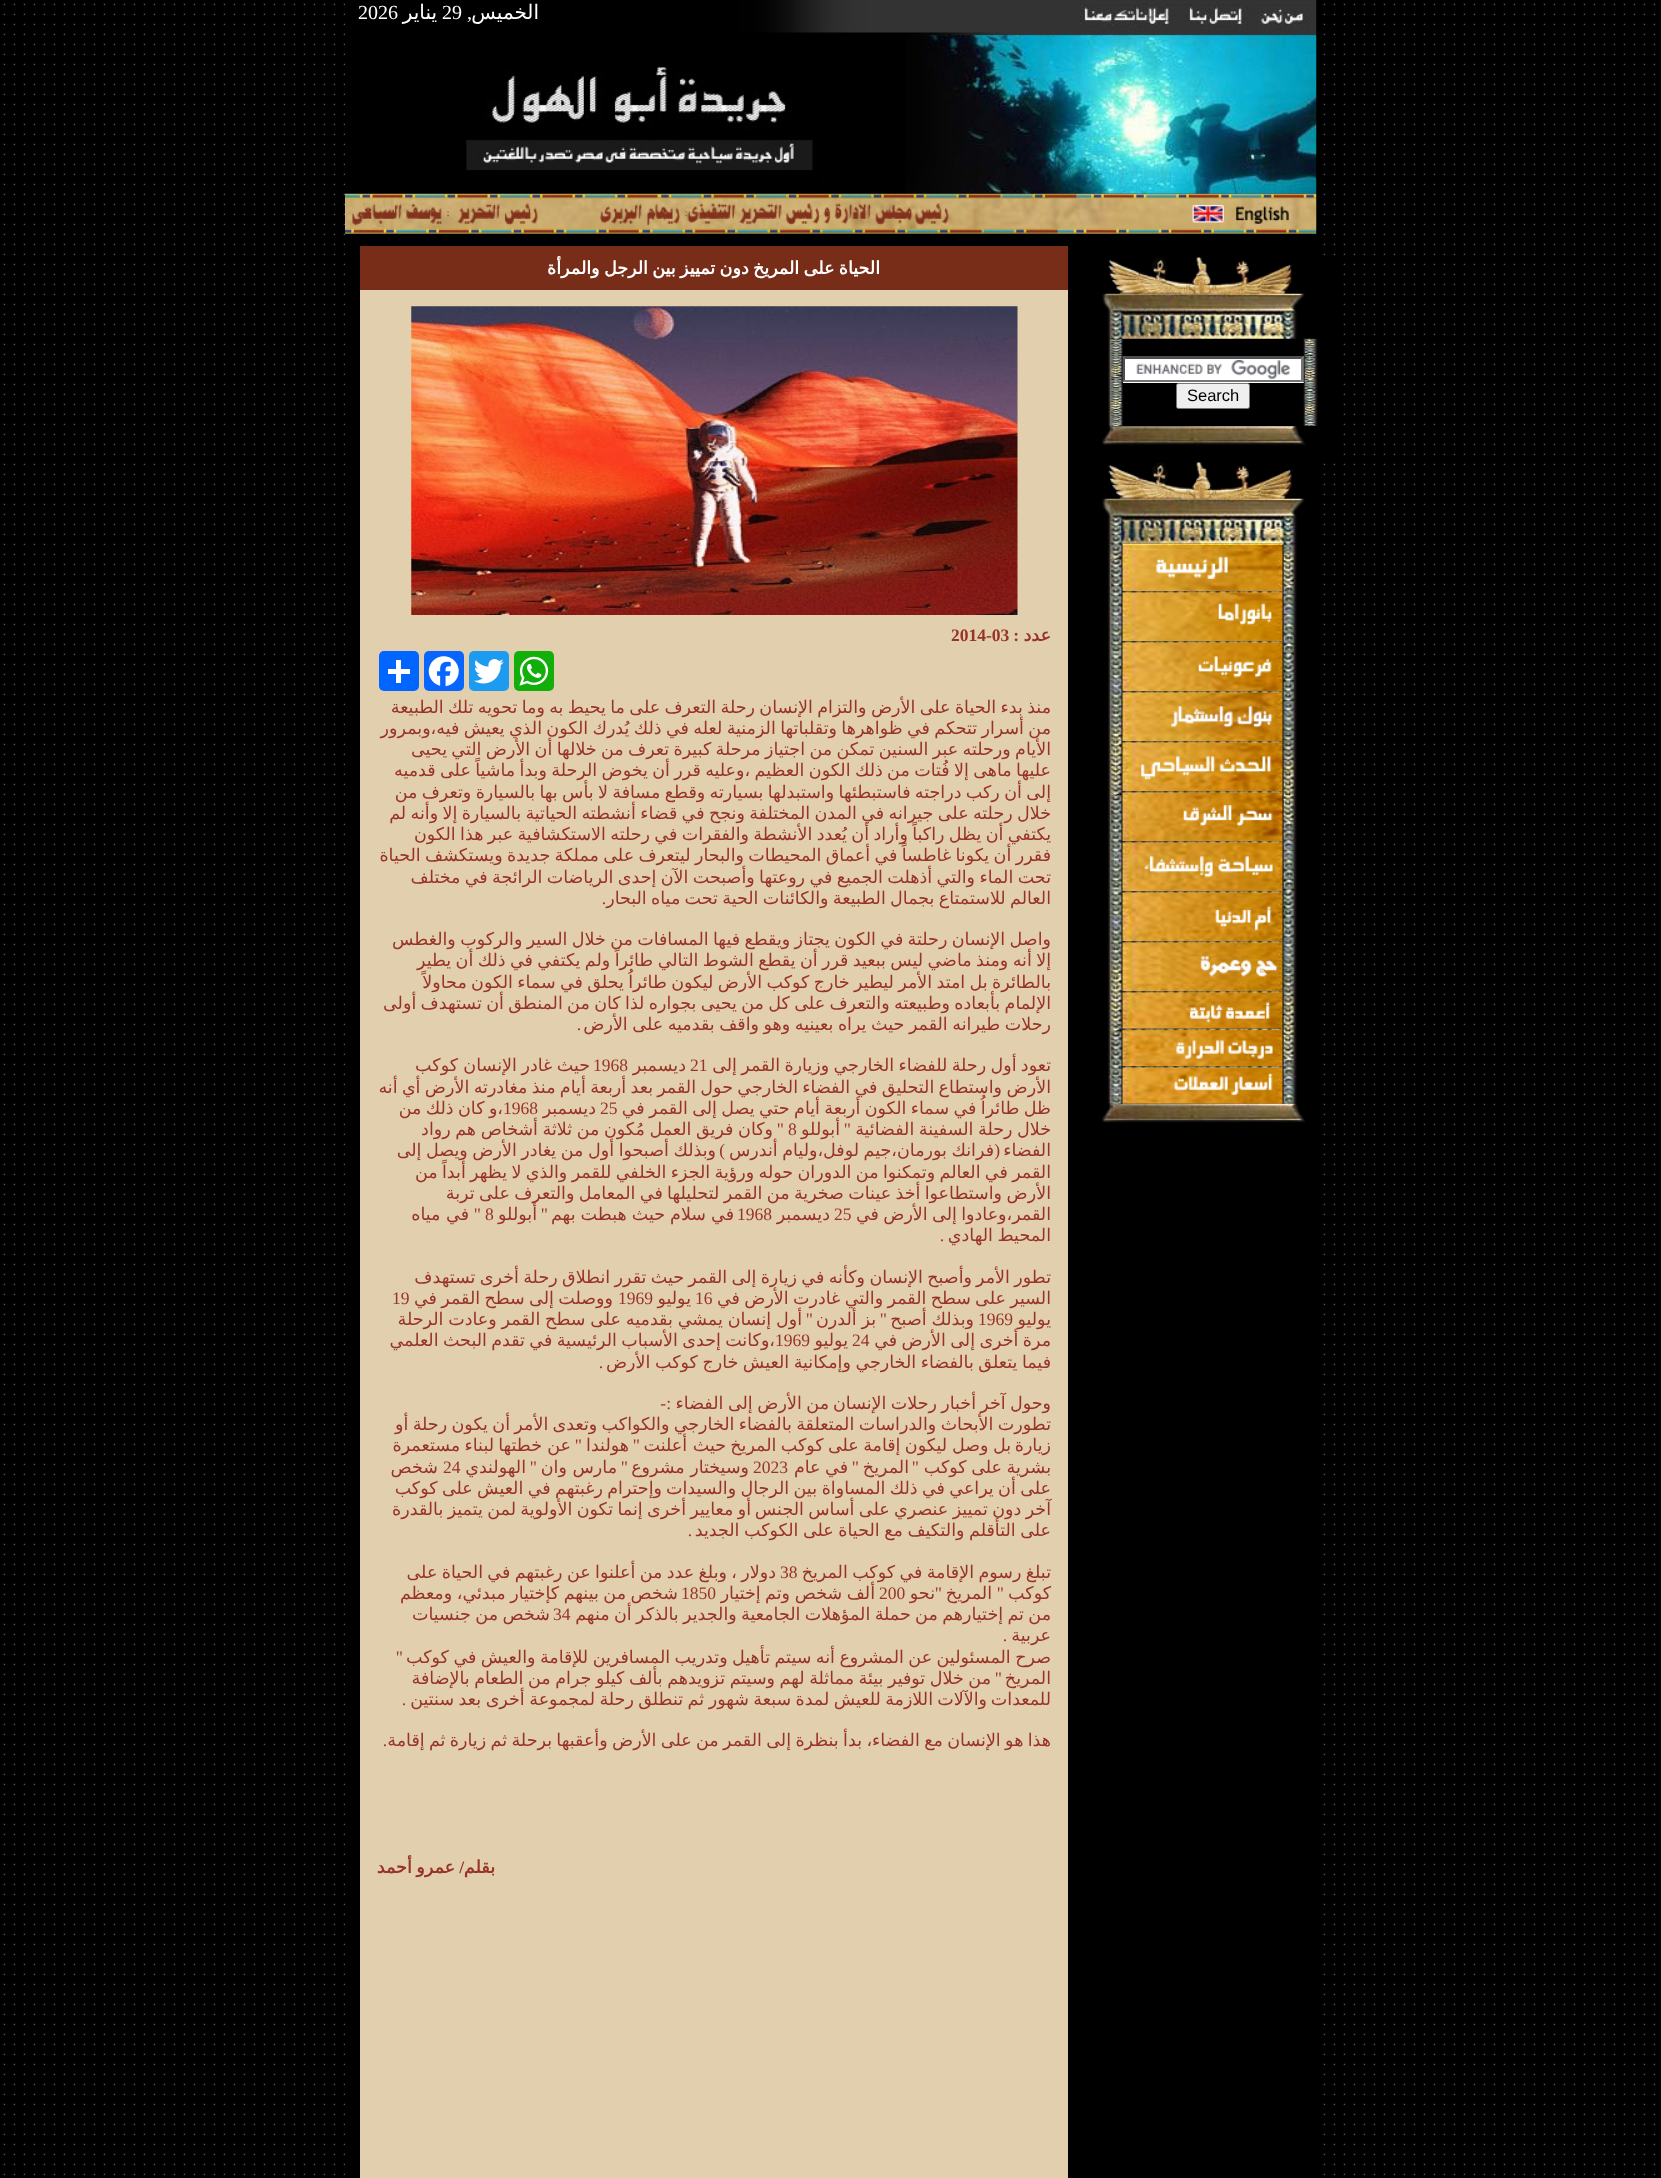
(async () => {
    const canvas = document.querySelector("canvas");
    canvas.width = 1661;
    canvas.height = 2178;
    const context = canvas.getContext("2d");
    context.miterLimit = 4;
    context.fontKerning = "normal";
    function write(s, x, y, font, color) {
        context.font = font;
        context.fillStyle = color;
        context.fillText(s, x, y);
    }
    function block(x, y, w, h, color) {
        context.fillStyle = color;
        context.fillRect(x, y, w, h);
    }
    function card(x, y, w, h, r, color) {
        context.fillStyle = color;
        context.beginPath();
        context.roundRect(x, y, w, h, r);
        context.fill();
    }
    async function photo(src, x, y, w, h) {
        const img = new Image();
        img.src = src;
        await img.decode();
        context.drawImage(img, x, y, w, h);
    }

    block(0, 0, 1661, 2178, "rgb(255, 255, 255)");
    await photo("media/1.png", 0, 0, 1661, 2178);
    block(345, 3, 971, 2173, "rgb(0, 0, 0)");
    await photo("media/2.png", 466, 0, 851, 194);
    context.direction = "rtl";
    write("الخميس", 539, 19, "20px DejaVu Sans", "rgb(255, 255, 255)");
    write(",", 472, 19, "20px Liberation Serif", "rgb(255, 255, 255)");
    context.direction = "ltr";
    write("29", 442, 19, "20px Liberation Serif", "rgb(255, 255, 255)");
    context.direction = "rtl";
    write("يناير", 437, 19, "20px DejaVu Sans", "rgb(255, 255, 255)");
    context.direction = "ltr";
    write("2026", 358, 19, "20px Liberation Serif", "rgb(255, 255, 255)");
    await photo("media/3.png", 345, 193, 972, 41);
    block(1323, 263, 13, 193, "rgb(0, 0, 0)");
    await photo("media/4.png", 1102, 257, 203, 82);
    block(1123, 356, 181, 27, "rgb(255, 255, 255)");
    await photo("media/7.png", 1108, 338, 15, 89);
    context.fillStyle = "rgb(79, 79, 79)";
    context.beginPath();
    context.moveTo(1122, 356);
    context.lineTo(1304, 356);
    context.lineTo(1301, 359);
    context.lineTo(1125, 359);
    context.closePath();
    context.fill();
    context.fillStyle = "rgb(118, 118, 118)";
    context.beginPath();
    context.moveTo(1304, 356);
    context.lineTo(1304, 382.5);
    context.lineTo(1301, 380);
    context.lineTo(1301, 359);
    context.closePath();
    context.fill();
    context.beginPath();
    context.moveTo(1304, 382);
    context.lineTo(1122, 382);
    context.lineTo(1125, 380);
    context.lineTo(1301, 380);
    context.closePath();
    context.fill();
    await photo("media/5.png", 1303, 338, 15, 89);
    await photo("media/6.png", 1136, 360, 154, 19);
    context.fillStyle = "rgb(79, 79, 79)";
    context.beginPath();
    context.moveTo(1122.5, 382.5);
    context.lineTo(1122.5, 356);
    context.lineTo(1125, 359);
    context.lineTo(1125, 380);
    context.closePath();
    context.fill();
    context.fillStyle = "rgb(239, 239, 239)";
    context.beginPath();
    context.roundRect(1176.5, 383.5, 73, 25, 2);
    context.fill();
    context.strokeStyle = "rgb(118, 118, 118)";
    context.stroke();
    write("Search", 1187, 401, "16.5px Liberation Sans", "rgb(0, 0, 0)");
    await photo("media/8.png", 1102, 426, 214, 20);
    await photo("media/10.png", 1282, 543, 15, 561);
    await photo("media/12.png", 1107, 543, 16, 561);
    await photo("media/9.png", 1102, 462, 203, 82);
    await photo("media/11.png", 1122, 543, 161, 49);
    await photo("media/13.png", 1122, 591, 161, 51);
    await photo("media/14.png", 1122, 641, 161, 51);
    await photo("media/15.png", 1122, 691, 161, 51);
    await photo("media/16.png", 1122, 741, 161, 51);
    await photo("media/17.png", 1122, 791, 161, 51);
    await photo("media/18.png", 1122, 841, 161, 51);
    await photo("media/19.png", 1122, 891, 161, 51);
    await photo("media/20.png", 1122, 941, 161, 51);
    await photo("media/21.png", 1122, 991, 161, 38);
    await photo("media/22.png", 1122, 1028, 161, 39);
    await photo("media/23.png", 1122, 1066, 161, 38);
    await photo("media/24.png", 1101, 1103, 204, 20);
    block(360, 246, 708, 44, "rgb(120, 45, 24)");
    context.wordSpacing = "-1.2px";
    context.direction = "rtl";
    write("الحياة على المريخ دون تمييز بين الرجل والمرأة", 880, 274, "bold 17.5px DejaVu Sans", "rgb(255, 255, 255)");
    block(360, 290, 708, 1888, "rgb(225, 207, 174)");
    await photo("media/25.png", 411, 306, 607, 309);
    context.wordSpacing = "0px";
    write("عدد", 1051, 641, "bold 17.5px DejaVu Sans", "rgb(152, 51, 39)");
    write(":", 1019, 641, "bold 17.5px Liberation Serif", "rgb(152, 51, 39)");
    context.direction = "ltr";
    write("2014-03", 951, 641, "bold 17.5px Liberation Serif", "rgb(152, 51, 39)");
    card(514, 651, 40, 40, 5, "rgb(18, 175, 10)");
    await photo("media/26.png", 519, 656, 30, 30);
    card(469, 651, 40, 40, 5, "rgb(29, 155, 240)");
    await photo("media/27.png", 474, 659, 30, 25);
    card(424, 651, 40, 40, 5, "rgb(8, 102, 255)");
    await photo("media/28.png", 428, 656, 31, 31);
    card(379, 651, 40, 40, 5, "rgb(1, 102, 255)");
    block(396, 660, 5, 23, "rgb(255, 255, 255)");
    block(388, 669, 22, 5, "rgb(255, 255, 255)");
    context.wordSpacing = "-1.2px";
    context.direction = "rtl";
    write("منذ بدء الحياة على الأرض والتزام الإنسان رحلة التعرف على ما يحيط به وما تحويه تلك الطبيعة", 1051, 713, "17.5px DejaVu Sans", "rgb(152, 51, 39)");
    write("من أسرار تتحكم في ظواهرها وتقلباتها الزمنية لعله في ذلك يُدرك الكون الذي يعيش فيه،وبمرور", 1051, 734, "17.5px DejaVu Sans", "rgb(152, 51, 39)");
    write("الأيام ورحلته عبر السنين تمكن من اجتياز مرحلة كبيرة تعرف من خلالها أن الأرض التي", 1051, 755, "17.5px DejaVu Sans", "rgb(152, 51, 39)");
    context.wordSpacing = "0px";
    write("يحيى", 447, 755, "17.5px DejaVu Sans", "rgb(152, 51, 39)");
    context.wordSpacing = "-1.2px";
    write("عليها ماهى إلا فُتات من ذلك الكون العظيم ،وعليه قرر أن يخوض الرحلة وبدأ ماشياً على قدميه", 1051, 776, "17.5px DejaVu Sans", "rgb(152, 51, 39)");
    write("إلى أن ركب دراجته فاستبطئها واستبدلها بسيارته وقطع مسافة لا بأس بها بالسيارة وتعرف من", 1051, 798, "17.5px DejaVu Sans", "rgb(152, 51, 39)");
    write("خلال رحلته على جيرانه في المدن المختلفة ونجح في قضاء أنشطته الحياتية بالسيارة إلا وأنه لم", 1051, 819, "17.5px DejaVu Sans", "rgb(152, 51, 39)");
    write("يكتفي أن يظل راكباً وأراد أن يُعدد الأنشطة", 1051, 840, "17.5px DejaVu Sans", "rgb(152, 51, 39)");
    write("والفقرات في رحلته الاستكشافية عبر هذا الكون", 749, 840, "17.5px DejaVu Sans", "rgb(152, 51, 39)");
    write("فقرر أن يكونا غاطساً في أعماق المحيطات والبحار ليتعرف على مملكة جديدة ويستكشف الحياة", 1051, 861, "17.5px DejaVu Sans", "rgb(152, 51, 39)");
    write("تحت الماء والتي أذهلت الجميع في روعتها وأصبحت الآن إحدى الرياضات الرائجة في مختلف", 1051, 883, "17.5px DejaVu Sans", "rgb(152, 51, 39)");
    context.wordSpacing = "0px";
    write(".", 606, 904, "17.5px Liberation Serif", "rgb(152, 51, 39)");
    context.wordSpacing = "-1.2px";
    write("العالم للاستمتاع بجمال الطبيعة والكائنات الحية تحت مياه البحار", 1051, 904, "17.5px DejaVu Sans", "rgb(152, 51, 39)");
    write("واصل الإنسان رحلتة في الكون يجتاز ويقطع فيها المسافات من خلال السير والركوب والغطس", 1051, 945, "17.5px DejaVu Sans", "rgb(152, 51, 39)");
    write("إلا أنه ومنذ ماضي ليس ببعيد قرر أن يقطع الشوط التالي طائراً ولم يكتفي في ذلك أن يطير", 1051, 966, "17.5px DejaVu Sans", "rgb(152, 51, 39)");
    write("بالطائرة بل امتد الأمر ليطير خارج كوكب الأرض ليكون طائراُ يحلق في سماء الكون محاولاً", 1051, 988, "17.5px DejaVu Sans", "rgb(152, 51, 39)");
    write("الإلمام بأبعاده وطبيعته والتعرف على كل من يحيى بجواره لذا كان من المنطق أن تستهدف أولى", 1051, 1009, "17.5px DejaVu Sans", "rgb(152, 51, 39)");
    context.wordSpacing = "-1px";
    write("رحلات طيرانه القمر حيث يراه بعينيه وهو واقف بقدميه على الأرض", 1051, 1030, "17.5px DejaVu Sans", "rgb(152, 51, 39)");
    context.wordSpacing = "0px";
    write(".", 581, 1030, "17.5px Liberation Serif", "rgb(152, 51, 39)");
    context.wordSpacing = "-1.2px";
    write("تعود أول رحلة للفضاء الخارجي وزيارة القمر إلى", 1051, 1071, "17.5px DejaVu Sans", "rgb(152, 51, 39)");
    context.wordSpacing = "0px";
    context.direction = "ltr";
    write("21", 690, 1071, "17.5px Liberation Serif", "rgb(152, 51, 39)");
    context.direction = "rtl";
    write("ديسمبر", 686, 1071, "17.5px DejaVu Sans", "rgb(152, 51, 39)");
    context.direction = "ltr";
    write("1968", 593, 1071, "17.5px Liberation Serif", "rgb(152, 51, 39)");
    context.wordSpacing = "-1px";
    context.direction = "rtl";
    write("حيث غادر الإنسان", 590, 1071, "17.5px DejaVu Sans", "rgb(152, 51, 39)");
    context.wordSpacing = "0px";
    write("كوكب", 458, 1071, "17.5px DejaVu Sans", "rgb(152, 51, 39)");
    write("الأرض", 1051, 1093, "17.5px DejaVu Sans", "rgb(152, 51, 39)");
    context.wordSpacing = "-1.2px";
    write("واستطاع التحليق في الفضاء الخارجي حول القمر", 1002, 1093, "17.5px DejaVu Sans", "rgb(152, 51, 39)");
    write("بعد أربعة أيام منذ مغادرته الأرض أي أنه", 653, 1093, "17.5px DejaVu Sans", "rgb(152, 51, 39)");
    write("ظل طائراُ في سماء الكون أربعة أيام حتي يصل إلى القمر في", 1051, 1114, "17.5px DejaVu Sans", "rgb(152, 51, 39)");
    context.wordSpacing = "0px";
    context.direction = "ltr";
    write("25", 600, 1114, "17.5px Liberation Serif", "rgb(152, 51, 39)");
    context.direction = "rtl";
    write("ديسمبر", 596, 1114, "17.5px DejaVu Sans", "rgb(152, 51, 39)");
    context.direction = "ltr";
    write("1968", 503, 1114, "17.5px Liberation Serif", "rgb(152, 51, 39)");
    context.wordSpacing = "-1.2px";
    context.direction = "rtl";
    write("،و كان ذلك من", 503, 1114, "17.5px DejaVu Sans", "rgb(152, 51, 39)");
    context.wordSpacing = "-1px";
    write("خلال رحلة السفينة الفضائية", 1051, 1135, "17.5px DejaVu Sans", "rgb(152, 51, 39)");
    context.wordSpacing = "0px";
    write("\"", 851, 1135, "17.5px Liberation Serif", "rgb(152, 51, 39)");
    write("أبوللو", 840, 1135, "17.5px DejaVu Sans", "rgb(152, 51, 39)");
    context.direction = "ltr";
    write("8", 788, 1135, "17.5px Liberation Serif", "rgb(152, 51, 39)");
    context.direction = "rtl";
    write("\"", 784, 1135, "17.5px Liberation Serif", "rgb(152, 51, 39)");
    context.wordSpacing = "-1px";
    write("وكان فريق العمل مُكون من ثلاثة أشخاص هم رواد", 773, 1135, "17.5px DejaVu Sans", "rgb(152, 51, 39)");
    context.wordSpacing = "0px";
    write("الفضاء", 1051, 1156, "17.5px DejaVu Sans", "rgb(152, 51, 39)");
    write("(", 1000, 1156, "17.5px Liberation Serif", "rgb(152, 51, 39)");
    context.wordSpacing = "-1px";
    write("فرانك بورمان،جيم لوفل،وليام أندرس", 994, 1156, "17.5px DejaVu Sans", "rgb(152, 51, 39)");
    context.wordSpacing = "0px";
    write(")", 725, 1156, "17.5px Liberation Serif", "rgb(152, 51, 39)");
    context.wordSpacing = "-1px";
    write("وبذلك أصبحوا أول من يغادر الأرض ويصل إلى", 716, 1156, "17.5px DejaVu Sans", "rgb(152, 51, 39)");
    context.wordSpacing = "-1.2px";
    write("القمر في العالم وتمكنوا من الدوران حوله ورؤية الجزء الخلفي للقمر والذي لا يظهر أبداً من", 1051, 1178, "17.5px DejaVu Sans", "rgb(152, 51, 39)");
    context.wordSpacing = "0px";
    write("الأرض", 1051, 1199, "17.5px DejaVu Sans", "rgb(152, 51, 39)");
    context.wordSpacing = "-1.2px";
    write("واستطاعوا أخذ عينات صخرية من القمر لتحليلها في المعامل والتعرف على تربة", 1002, 1199, "17.5px DejaVu Sans", "rgb(152, 51, 39)");
    write("القمر،وعادوا إلى الأرض في", 1051, 1220, "17.5px DejaVu Sans", "rgb(152, 51, 39)");
    context.wordSpacing = "0px";
    context.direction = "ltr";
    write("25", 834, 1220, "17.5px Liberation Serif", "rgb(152, 51, 39)");
    context.direction = "rtl";
    write("ديسمبر", 830, 1220, "17.5px DejaVu Sans", "rgb(152, 51, 39)");
    context.direction = "ltr";
    write("1968", 737, 1220, "17.5px Liberation Serif", "rgb(152, 51, 39)");
    context.wordSpacing = "-0.5px";
    context.direction = "rtl";
    write("في سلام حيث هبطت بهم", 734, 1220, "17.5px DejaVu Sans", "rgb(152, 51, 39)");
    context.wordSpacing = "0px";
    write("\"", 548, 1220, "17.5px Liberation Serif", "rgb(152, 51, 39)");
    write("أبوللو", 537, 1220, "17.5px DejaVu Sans", "rgb(152, 51, 39)");
    context.direction = "ltr";
    write("8", 485, 1220, "17.5px Liberation Serif", "rgb(152, 51, 39)");
    context.direction = "rtl";
    write("\"", 481, 1220, "17.5px Liberation Serif", "rgb(152, 51, 39)");
    write("في مياه", 469, 1220, "17.5px DejaVu Sans", "rgb(152, 51, 39)");
    context.wordSpacing = "-1px";
    write("المحيط الهادي", 1051, 1241, "17.5px DejaVu Sans", "rgb(152, 51, 39)");
    context.wordSpacing = "0px";
    write(".", 944, 1241, "17.5px Liberation Serif", "rgb(152, 51, 39)");
    context.wordSpacing = "-1.2px";
    write("تطور الأمر", 1051, 1283, "17.5px DejaVu Sans", "rgb(152, 51, 39)");
    write("وأصبح الإنسان", 972, 1283, "17.5px DejaVu Sans", "rgb(152, 51, 39)");
    write("وكأنه في زيارة إلى القمر حيث تقرر انطلاق رحلة أخرى تستهدف", 865, 1283, "17.5px DejaVu Sans", "rgb(152, 51, 39)");
    write("السير على", 1051, 1304, "17.5px DejaVu Sans", "rgb(152, 51, 39)");
    write("سطح القمر والتي غادرت الأرض في", 971, 1304, "17.5px DejaVu Sans", "rgb(152, 51, 39)");
    context.wordSpacing = "0px";
    context.direction = "ltr";
    write("16", 695, 1304, "17.5px Liberation Serif", "rgb(152, 51, 39)");
    context.direction = "rtl";
    write("يوليو", 691, 1304, "17.5px DejaVu Sans", "rgb(152, 51, 39)");
    context.direction = "ltr";
    write("1969", 618, 1304, "17.5px Liberation Serif", "rgb(152, 51, 39)");
    context.wordSpacing = "-1.2px";
    context.direction = "rtl";
    write("ووصلت إلى سطح القمر في", 613, 1304, "17.5px DejaVu Sans", "rgb(152, 51, 39)");
    context.wordSpacing = "0px";
    context.direction = "ltr";
    write("19", 392, 1304, "17.5px Liberation Serif", "rgb(152, 51, 39)");
    context.direction = "rtl";
    write("يوليو", 1051, 1325, "17.5px DejaVu Sans", "rgb(152, 51, 39)");
    context.direction = "ltr";
    write("1969", 978, 1325, "17.5px Liberation Serif", "rgb(152, 51, 39)");
    context.wordSpacing = "-0.75px";
    context.direction = "rtl";
    write("وبذلك أصبح", 974, 1325, "17.5px DejaVu Sans", "rgb(152, 51, 39)");
    context.wordSpacing = "0px";
    write("\"", 887, 1325, "17.5px Liberation Serif", "rgb(152, 51, 39)");
    context.wordSpacing = "-0.75px";
    write("بز ألدرن", 876, 1325, "17.5px DejaVu Sans", "rgb(152, 51, 39)");
    context.wordSpacing = "0px";
    write("\"", 813, 1325, "17.5px Liberation Serif", "rgb(152, 51, 39)");
    context.wordSpacing = "-0.75px";
    write("أول إنسان يمشي بقدميه على سطح القمر وعادت الرحلة", 802, 1325, "17.5px DejaVu Sans", "rgb(152, 51, 39)");
    context.wordSpacing = "-1.2px";
    write("مرة أخرى إلى الأرض في", 1051, 1346, "17.5px DejaVu Sans", "rgb(152, 51, 39)");
    context.wordSpacing = "0px";
    context.direction = "ltr";
    write("24", 852, 1346, "17.5px Liberation Serif", "rgb(152, 51, 39)");
    context.direction = "rtl";
    write("يوليو", 848, 1346, "17.5px DejaVu Sans", "rgb(152, 51, 39)");
    context.direction = "ltr";
    write("1969", 775, 1346, "17.5px Liberation Serif", "rgb(152, 51, 39)");
    context.wordSpacing = "-1.2px";
    context.direction = "rtl";
    write("،وكانت إحدى الأسباب الرئيسية في تقدم البحث العلمي", 775, 1346, "17.5px DejaVu Sans", "rgb(152, 51, 39)");
    context.wordSpacing = "-1px";
    write("فيما يتعلق بالفضاء الخارجي وإمكانية العيش خارج كوكب الأرض", 1051, 1368, "17.5px DejaVu Sans", "rgb(152, 51, 39)");
    context.wordSpacing = "0px";
    write(".", 603, 1368, "17.5px Liberation Serif", "rgb(152, 51, 39)");
    context.wordSpacing = "-1.2px";
    write("وحول آخر", 1051, 1409, "17.5px DejaVu Sans", "rgb(152, 51, 39)");
    context.wordSpacing = "0px";
    write("أخبار", 976, 1409, "17.5px DejaVu Sans", "rgb(152, 51, 39)");
    context.wordSpacing = "-1.2px";
    write("رحلات الإنسان", 937, 1409, "17.5px DejaVu Sans", "rgb(152, 51, 39)");
    context.wordSpacing = "-1px";
    write("من الأرض إلى الفضاء", 829, 1409, "17.5px DejaVu Sans", "rgb(152, 51, 39)");
    context.wordSpacing = "0px";
    write(":-", 671, 1409, "17.5px Liberation Serif", "rgb(152, 51, 39)");
    context.wordSpacing = "-1.2px";
    write("تطورت الأبحاث والدراسات المتعلقة بالفضاء الخارجي والكواكب وتعدى الأمر أن يكون رحلة أو", 1051, 1430, "17.5px DejaVu Sans", "rgb(152, 51, 39)");
    context.wordSpacing = "0px";
    write("زيارة", 1051, 1451, "17.5px DejaVu Sans", "rgb(152, 51, 39)");
    context.wordSpacing = "-1.2px";
    write("بل وصل", 1011, 1451, "17.5px DejaVu Sans", "rgb(152, 51, 39)");
    write("ليكون إقامة على كوكب المريخ", 947, 1451, "17.5px DejaVu Sans", "rgb(152, 51, 39)");
    context.wordSpacing = "0px";
    write("حيث أعلنت", 726, 1451, "17.5px DejaVu Sans", "rgb(152, 51, 39)");
    write("\"", 640, 1451, "17.5px Liberation Serif", "rgb(152, 51, 39)");
    write("هولندا", 629, 1451, "17.5px DejaVu Sans", "rgb(152, 51, 39)");
    write("\"", 582, 1451, "17.5px Liberation Serif", "rgb(152, 51, 39)");
    write("عن", 571, 1451, "17.5px DejaVu Sans", "rgb(152, 51, 39)");
    write("خطتها", 542, 1451, "17.5px DejaVu Sans", "rgb(152, 51, 39)");
    context.wordSpacing = "-1.2px";
    write("لبناء مستعمرة", 494, 1451, "17.5px DejaVu Sans", "rgb(152, 51, 39)");
    context.wordSpacing = "-1px";
    write("بشرية على كوكب", 1051, 1473, "17.5px DejaVu Sans", "rgb(152, 51, 39)");
    context.wordSpacing = "0px";
    write("\"", 919, 1473, "17.5px Liberation Serif", "rgb(152, 51, 39)");
    write("المريخ", 909, 1473, "17.5px DejaVu Sans", "rgb(152, 51, 39)");
    write("\"", 859, 1473, "17.5px Liberation Serif", "rgb(152, 51, 39)");
    context.wordSpacing = "-1px";
    write("في عام", 848, 1473, "17.5px DejaVu Sans", "rgb(152, 51, 39)");
    context.wordSpacing = "0px";
    context.direction = "ltr";
    write("2023", 753, 1473, "17.5px Liberation Serif", "rgb(152, 51, 39)");
    context.direction = "rtl";
    write("وسيختار مشروع", 749, 1473, "17.5px DejaVu Sans", "rgb(152, 51, 39)");
    write("\"", 628, 1473, "17.5px Liberation Serif", "rgb(152, 51, 39)");
    write("مارس وان", 617, 1473, "17.5px DejaVu Sans", "rgb(152, 51, 39)");
    write("\"", 537, 1473, "17.5px Liberation Serif", "rgb(152, 51, 39)");
    write("الهولندي", 526, 1473, "17.5px DejaVu Sans", "rgb(152, 51, 39)");
    context.direction = "ltr";
    write("24", 443, 1473, "17.5px Liberation Serif", "rgb(152, 51, 39)");
    context.direction = "rtl";
    write("شخص", 438, 1473, "17.5px DejaVu Sans", "rgb(152, 51, 39)");
    context.wordSpacing = "-1.2px";
    write("على أن يراعي في ذلك المساواة", 1051, 1494, "17.5px DejaVu Sans", "rgb(152, 51, 39)");
    write("بين الرجال والسيدات", 817, 1494, "17.5px DejaVu Sans", "rgb(152, 51, 39)");
    write("وإحترام رغبتهم في العيش على كوكب", 662, 1494, "17.5px DejaVu Sans", "rgb(152, 51, 39)");
    write("آخر دون تمييز عنصري على أساس الجنس", 1051, 1515, "17.5px DejaVu Sans", "rgb(152, 51, 39)");
    write("أو معايير أخرى إنما تكون الأولوية", 751, 1515, "17.5px DejaVu Sans", "rgb(152, 51, 39)");
    write("لمن يتميز بالقدرة", 516, 1515, "17.5px DejaVu Sans", "rgb(152, 51, 39)");
    context.wordSpacing = "-1px";
    write("على التأقلم والتكيف مع الحياة على الكوكب الجديد", 1051, 1536, "17.5px DejaVu Sans", "rgb(152, 51, 39)");
    context.wordSpacing = "0px";
    write(".", 692, 1536, "17.5px Liberation Serif", "rgb(152, 51, 39)");
    context.wordSpacing = "-1.2px";
    write("تبلغ رسوم الإقامة في كوكب المريخ", 1051, 1578, "17.5px DejaVu Sans", "rgb(152, 51, 39)");
    context.wordSpacing = "0px";
    context.direction = "ltr";
    write("38", 780, 1578, "17.5px Liberation Serif", "rgb(152, 51, 39)");
    context.wordSpacing = "-1.2px";
    context.direction = "rtl";
    write("دولار ، وبلغ عدد من أعلنوا عن رغبتهم في الحياة على", 776, 1578, "17.5px DejaVu Sans", "rgb(152, 51, 39)");
    context.wordSpacing = "0px";
    write("كوكب", 1051, 1599, "17.5px DejaVu Sans", "rgb(152, 51, 39)");
    write("\"", 1004, 1599, "17.5px Liberation Serif", "rgb(152, 51, 39)");
    write("المريخ", 992, 1599, "17.5px DejaVu Sans", "rgb(152, 51, 39)");
    write("\"", 942, 1599, "17.5px Liberation Serif", "rgb(152, 51, 39)");
    context.direction = "ltr";
    write("200", 879, 1599, "17.5px Liberation Serif", "rgb(152, 51, 39)");
    context.wordSpacing = "-1px";
    context.direction = "rtl";
    write("ألف شخص", 875, 1599, "17.5px DejaVu Sans", "rgb(152, 51, 39)");
    context.wordSpacing = "-1.2px";
    write("وتم إختيار", 790, 1599, "17.5px DejaVu Sans", "rgb(152, 51, 39)");
    context.wordSpacing = "0px";
    context.direction = "ltr";
    write("1850", 681, 1599, "17.5px Liberation Serif", "rgb(152, 51, 39)");
    context.wordSpacing = "-1px";
    context.direction = "rtl";
    write("شخص من بينهم كإختيار مبدئي، ومعظم", 678, 1599, "17.5px DejaVu Sans", "rgb(152, 51, 39)");
    context.wordSpacing = "0px";
    write("نحو", 935, 1599, "17.5px DejaVu Sans", "rgb(152, 51, 39)");
    context.wordSpacing = "-1.2px";
    write("من تم إختيارهم من حملة المؤهلات الجامعية والجدير بالذكر أن منهم", 1051, 1620, "17.5px DejaVu Sans", "rgb(152, 51, 39)");
    context.wordSpacing = "0px";
    context.direction = "ltr";
    write("34", 553, 1620, "17.5px Liberation Serif", "rgb(152, 51, 39)");
    context.wordSpacing = "-1px";
    context.direction = "rtl";
    write("شخص من جنسيات", 550, 1620, "17.5px DejaVu Sans", "rgb(152, 51, 39)");
    context.wordSpacing = "0px";
    write("عربية", 1051, 1641, "17.5px DejaVu Sans", "rgb(152, 51, 39)");
    write(".", 1007, 1641, "17.5px Liberation Serif", "rgb(152, 51, 39)");
    context.wordSpacing = "-1.1px";
    write("صرح المسئولين عن المشروع أنه سيتم تأهيل وتدريب المسافرين للإقامة والعيش في كوكب", 1051, 1663, "17.5px DejaVu Sans", "rgb(152, 51, 39)");
    context.wordSpacing = "0px";
    write("\"", 403, 1663, "17.5px Liberation Serif", "rgb(152, 51, 39)");
    write("المريخ", 1051, 1684, "17.5px DejaVu Sans", "rgb(152, 51, 39)");
    write("\"", 1002, 1684, "17.5px Liberation Serif", "rgb(152, 51, 39)");
    context.wordSpacing = "-1px";
    write("من خلال توفير بيئة مماثلة لهم وسيتم تزويدهم بألف كيلو جرام من الطعام بالإضافة", 991, 1684, "17.5px DejaVu Sans", "rgb(152, 51, 39)");
    context.wordSpacing = "0px";
    write("للمعدات", 1051, 1705, "17.5px DejaVu Sans", "rgb(152, 51, 39)");
    write("والآلات", 987, 1705, "17.5px DejaVu Sans", "rgb(152, 51, 39)");
    context.wordSpacing = "-1.2px";
    write("اللازمة للعيش لمدة سبعة شهور", 933, 1705, "17.5px DejaVu Sans", "rgb(152, 51, 39)");
    write("ثم تنطلق رحلة", 704, 1705, "17.5px DejaVu Sans", "rgb(152, 51, 39)");
    context.wordSpacing = "-1px";
    write("لمجموعة أخرى بعد سنتين", 595, 1705, "17.5px DejaVu Sans", "rgb(152, 51, 39)");
    context.wordSpacing = "0px";
    write(".", 406, 1705, "17.5px Liberation Serif", "rgb(152, 51, 39)");
    context.wordSpacing = "-1.2px";
    write("هذا هو الإنسان مع الفضاء، بدأ بنظرة إلى القمر من على الأرض وأعقبها برحلة", 1051, 1746, "17.5px DejaVu Sans", "rgb(152, 51, 39)");
    write("ثم زيارة ثم إقامة", 507, 1746, "17.5px DejaVu Sans", "rgb(152, 51, 39)");
    context.wordSpacing = "0px";
    write(".", 387, 1746, "17.5px Liberation Serif", "rgb(152, 51, 39)");
    write("بقلم", 495, 1873, "bold 17.5px DejaVu Sans", "rgb(152, 51, 39)");
    write("/", 464, 1873, "bold 17.5px Liberation Serif", "rgb(152, 51, 39)");
    context.wordSpacing = "-1px";
    write("عمرو أحمد", 455, 1873, "bold 17.5px DejaVu Sans", "rgb(152, 51, 39)");
})();
